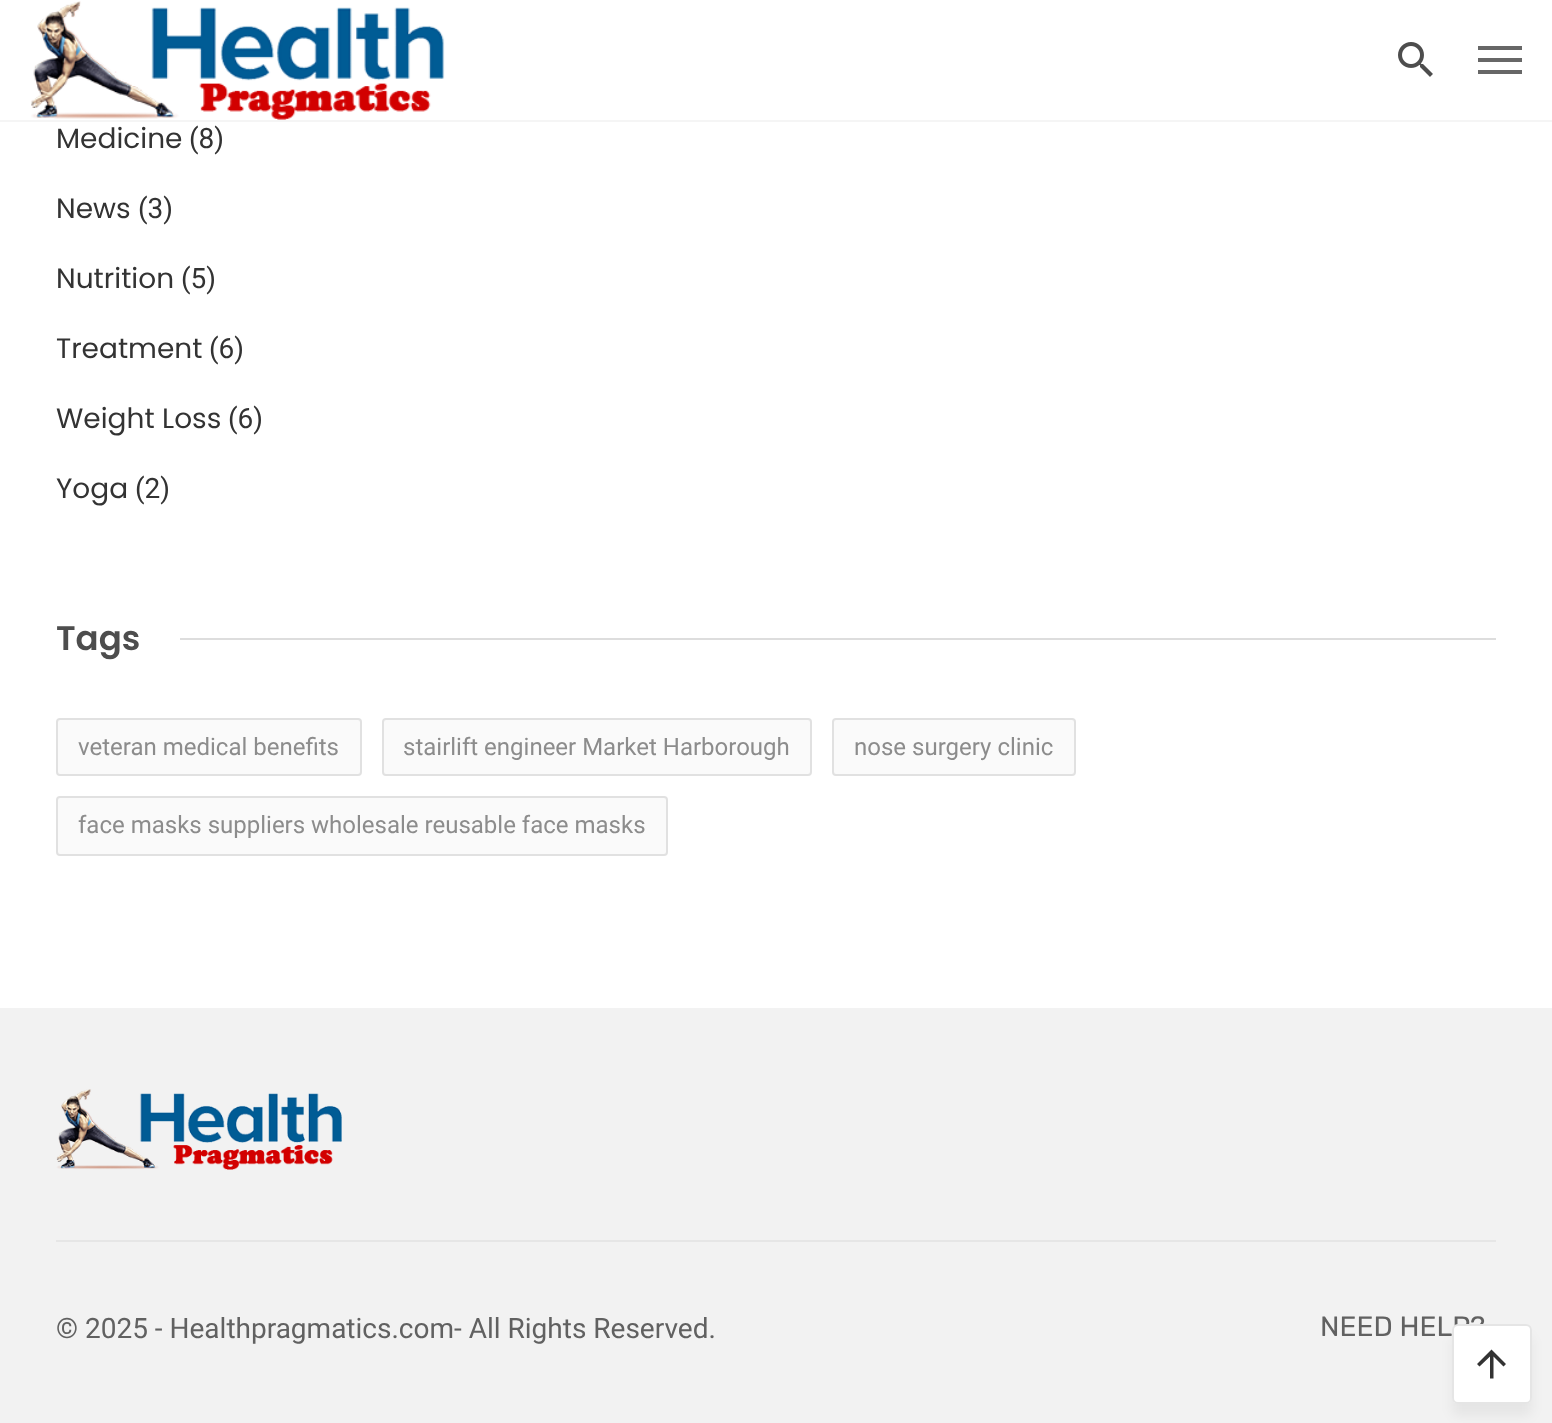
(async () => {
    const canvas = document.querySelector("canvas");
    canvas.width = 1552;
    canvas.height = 1423;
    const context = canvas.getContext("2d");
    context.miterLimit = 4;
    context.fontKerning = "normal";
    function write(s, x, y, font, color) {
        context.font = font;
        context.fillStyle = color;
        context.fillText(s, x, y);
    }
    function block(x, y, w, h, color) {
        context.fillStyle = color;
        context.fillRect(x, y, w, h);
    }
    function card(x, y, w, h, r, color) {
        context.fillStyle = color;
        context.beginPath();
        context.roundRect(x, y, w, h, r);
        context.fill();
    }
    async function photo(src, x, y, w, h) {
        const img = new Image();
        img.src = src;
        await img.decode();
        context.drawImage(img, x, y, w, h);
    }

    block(0, 0, 1552, 1423, "rgb(255, 255, 255)");
    block(0, 120, 1552, 2, "rgb(245, 245, 245)");
    await photo("media/1.png", 31, 1, 414, 119);
    await photo("media/2.png", 1398, 42, 35, 35);
    block(1478, 58, 44, 4, "rgb(103, 103, 103)");
    block(1478, 46, 44, 4, "rgb(103, 103, 103)");
    block(1478, 70, 44, 4, "rgb(103, 103, 103)");
    write("Medicine", 56, 148, "28px Poppins", "rgb(51, 51, 51)");
    write("(8)", 189, 148, "28px Roboto", "rgb(51, 51, 51)");
    write("News", 56, 218, "28px Poppins", "rgb(51, 51, 51)");
    write("(3)", 138, 218, "28px Roboto", "rgb(51, 51, 51)");
    write("Nutrition", 56, 288, "28px Poppins", "rgb(51, 51, 51)");
    write("(5)", 181, 288, "28px Roboto", "rgb(51, 51, 51)");
    write("Treatment", 56, 358, "28px Poppins", "rgb(51, 51, 51)");
    write("(6)", 209, 358, "28px Roboto", "rgb(51, 51, 51)");
    write("Weight Loss", 56, 428, "28px Poppins", "rgb(51, 51, 51)");
    write("(6)", 228, 428, "28px Roboto", "rgb(51, 51, 51)");
    write("Yoga", 56, 498, "28px Poppins", "rgb(51, 51, 51)");
    write("(2)", 135, 498, "28px Roboto", "rgb(51, 51, 51)");
    write("Tags", 56, 650, "600 34px Poppins", "rgb(77, 77, 77)");
    block(180, 638, 1316, 2, "rgb(221, 221, 221)");
    context.fillStyle = "rgb(250, 250, 250)";
    context.beginPath();
    context.roundRect(57, 719, 304, 56, 3);
    context.fill();
    context.strokeStyle = "rgb(225, 225, 225)";
    context.lineWidth = 2;
    context.stroke();
    write("veteran medical benefits", 78, 755, "24px Roboto", "rgb(140, 140, 140)");
    context.fillStyle = "rgb(250, 250, 250)";
    context.beginPath();
    context.roundRect(383, 719, 428, 56, 3);
    context.fill();
    context.stroke();
    write("stairlift engineer Market Harborough", 403, 755, "24px Roboto", "rgb(140, 140, 140)");
    context.fillStyle = "rgb(250, 250, 250)";
    context.beginPath();
    context.roundRect(833, 719, 242, 56, 3);
    context.fill();
    context.stroke();
    write("nose surgery clinic", 854, 755, "24px Roboto", "rgb(140, 140, 140)");
    context.fillStyle = "rgb(250, 250, 250)";
    context.beginPath();
    context.roundRect(57, 797, 610, 58, 3);
    context.fill();
    context.stroke();
    write("face masks suppliers wholesale reusable face masks", 78, 833, "24px Roboto", "rgb(140, 140, 140)");
    block(0, 1008, 1552, 415, "rgb(242, 242, 242)");
    await photo("media/3.png", 56, 1089, 286, 81);
    block(56, 1240, 1440, 2, "rgb(230, 230, 230)");
    write("© 2025 - Healthpragmatics.com- All Rights Reserved.", 56, 1338, "28px Roboto", "rgb(97, 97, 97)");
    write("NEED HELP?", 1320, 1336, "28px Rubik", "rgb(97, 97, 97)");
    context.fillStyle = "rgba(0, 0, 0, 0.05)";
    context.filter = "blur(6px)";
    context.beginPath();
    context.roundRect(1452, 1336, 80, 80, 6);
    context.fill();
    context.filter = "none";
    card(1452, 1324, 80, 80, 6, "rgb(255, 255, 255)");
    context.beginPath();
    context.roundRect(1453, 1325, 78, 78, 5);
    context.strokeStyle = "rgba(0, 0, 0, 0.1)";
    context.stroke();
    context.fillStyle = "rgb(51, 51, 51)";
    context.beginPath();
    context.moveTo(1477, 1364);
    context.lineTo(1491.5, 1349.5);
    context.lineTo(1506, 1364);
    context.lineTo(1503.5, 1366.5);
    context.lineTo(1493.5, 1356.5);
    context.lineTo(1493.5, 1378.5);
    context.lineTo(1490, 1378.5);
    context.lineTo(1490, 1356.5);
    context.lineTo(1479.5, 1366.5);
    context.closePath();
    context.fill();
})();
